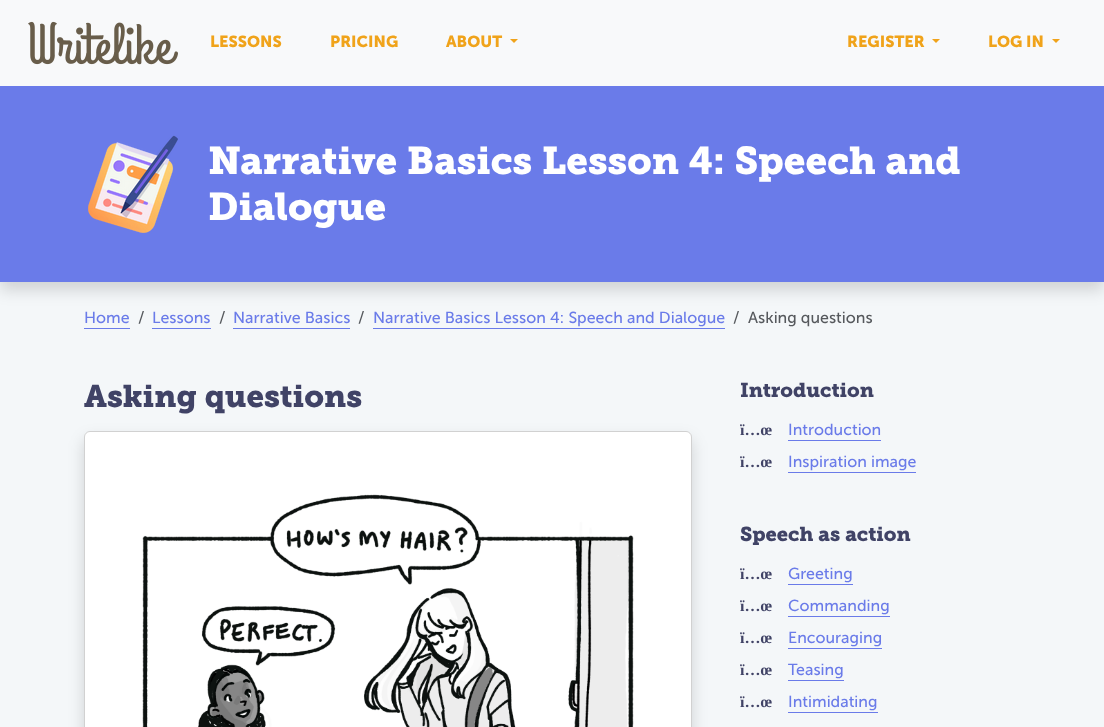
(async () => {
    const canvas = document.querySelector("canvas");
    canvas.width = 1104;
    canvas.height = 727;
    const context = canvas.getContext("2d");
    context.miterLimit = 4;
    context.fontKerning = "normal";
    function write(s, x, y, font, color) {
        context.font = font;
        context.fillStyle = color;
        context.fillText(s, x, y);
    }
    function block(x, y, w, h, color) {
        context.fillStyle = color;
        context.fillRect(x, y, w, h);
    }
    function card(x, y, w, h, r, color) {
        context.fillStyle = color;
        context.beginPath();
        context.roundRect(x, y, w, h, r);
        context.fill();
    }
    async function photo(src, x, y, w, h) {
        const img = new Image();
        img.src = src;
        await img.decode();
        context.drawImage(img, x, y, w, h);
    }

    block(0, 0, 1104, 727, "rgb(244, 247, 249)");
    context.fillStyle = "rgba(0, 0, 0, 0.15)";
    context.filter = "blur(8px)";
    context.beginPath();
    context.rect(0, 94, 1104, 196);
    context.fill();
    context.filter = "none";
    block(0, 0, 1104, 86, "rgb(248, 249, 250)");
    await photo("media/1.png", 28, 21, 150, 44);
    write("LESSONS", 210, 47, "bold 16px 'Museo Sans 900'", "rgb(240, 163, 26)");
    write("PRICING", 330, 47, "bold 16px 'Museo Sans 900'", "rgb(240, 163, 26)");
    write("ABOUT", 446, 47, "bold 16px 'Museo Sans 900'", "rgb(240, 163, 26)");
    context.beginPath();
    context.moveTo(510, 39);
    context.lineTo(518, 39);
    context.lineTo(514, 43);
    context.closePath();
    context.fill();
    write("REGISTER", 847, 47, "bold 16px 'Museo Sans 900'", "rgb(240, 163, 26)");
    context.beginPath();
    context.moveTo(932, 39);
    context.lineTo(940, 39);
    context.lineTo(936, 43);
    context.closePath();
    context.fill();
    write("LOG IN", 988, 47, "bold 16px 'Museo Sans 900'", "rgb(240, 163, 26)");
    context.beginPath();
    context.moveTo(1052, 39);
    context.lineTo(1060, 39);
    context.lineTo(1056, 43);
    context.closePath();
    context.fill();
    block(0, 86, 1104, 196, "rgb(106, 123, 233)");
    await photo("media/2.png", 87, 135, 91, 98);
    write("Narrative Basics Lesson 4: Speech and", 208, 174, "bold 38.6px 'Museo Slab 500'", "rgb(255, 255, 255)");
    write("Dialogue", 208, 220, "bold 38.6px 'Museo Slab 500'", "rgb(255, 255, 255)");
    write("Home", 84, 323, "16px 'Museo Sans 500'", "rgb(106, 123, 233)");
    block(84, 328, 46, 1, "rgb(106, 123, 233)");
    write("/", 138, 323, "16px 'Museo Sans 500'", "rgb(86, 89, 93)");
    write("Lessons", 152, 323, "16px 'Museo Sans 500'", "rgb(106, 123, 233)");
    block(152, 328, 59, 1, "rgb(106, 123, 233)");
    write("/", 219, 323, "16px 'Museo Sans 500'", "rgb(86, 89, 93)");
    write("Narrative Basics", 233, 323, "16px 'Museo Sans 500'", "rgb(106, 123, 233)");
    block(233, 328, 117, 1, "rgb(106, 123, 233)");
    write("/", 358, 323, "16px 'Museo Sans 500'", "rgb(86, 89, 93)");
    write("Narrative Basics Lesson 4: Speech and Dialogue", 373, 323, "16px 'Museo Sans 500'", "rgb(106, 123, 233)");
    block(373, 328, 352, 1, "rgb(106, 123, 233)");
    write("/", 733, 323, "16px 'Museo Sans 500'", "rgb(86, 89, 93)");
    write("Asking questions", 748, 323, "16px 'Museo Sans 500'", "rgb(86, 89, 93)");
    write("Asking questions", 84, 407, "bold 31.25px 'Museo Slab 500'", "rgb(64, 67, 102)");
    context.fillStyle = "rgba(0, 0, 0, 0.15)";
    context.filter = "blur(8px)";
    context.beginPath();
    context.roundRect(84, 439, 608, 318, 6);
    context.fill();
    context.filter = "none";
    card(84, 431, 608, 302, 6, "rgb(255, 255, 255)");
    context.beginPath();
    context.roundRect(84.5, 431.5, 607, 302, 5.5);
    context.strokeStyle = "rgba(0, 0, 0, 0.18)";
    context.stroke();
    await photo("media/3.png", 142, 494, 492, 233);
    write("Introduction", 740, 397, "bold 20px 'Museo Slab 500'", "rgb(64, 67, 102)");
    write("ï…œ", 740, 435, "bold 16px Liberation Serif", "rgb(64, 67, 102)");
    write("Introduction", 788, 435, "16px 'Museo Sans 500'", "rgb(106, 123, 233)");
    block(788, 440, 93, 1, "rgb(106, 123, 233)");
    write("ï…œ", 740, 467, "bold 16px Liberation Serif", "rgb(64, 67, 102)");
    write("Inspiration image", 788, 467, "16px 'Museo Sans 500'", "rgb(106, 123, 233)");
    block(788, 472, 128, 1, "rgb(106, 123, 233)");
    write("Speech as action", 740, 541, "bold 20px 'Museo Slab 500'", "rgb(64, 67, 102)");
    write("ï…œ", 740, 579, "bold 16px Liberation Serif", "rgb(64, 67, 102)");
    write("Greeting", 788, 579, "16px 'Museo Sans 500'", "rgb(106, 123, 233)");
    block(788, 584, 65, 1, "rgb(106, 123, 233)");
    write("ï…œ", 740, 611, "bold 16px Liberation Serif", "rgb(64, 67, 102)");
    write("Commanding", 788, 611, "16px 'Museo Sans 500'", "rgb(106, 123, 233)");
    block(788, 616, 102, 1, "rgb(106, 123, 233)");
    write("ï…œ", 740, 643, "bold 16px Liberation Serif", "rgb(64, 67, 102)");
    write("Encouraging", 788, 643, "16px 'Museo Sans 500'", "rgb(106, 123, 233)");
    block(788, 648, 94, 1, "rgb(106, 123, 233)");
    write("ï…œ", 740, 675, "bold 16px Liberation Serif", "rgb(64, 67, 102)");
    write("Teasing", 788, 675, "16px 'Museo Sans 500'", "rgb(106, 123, 233)");
    block(788, 680, 56, 1, "rgb(106, 123, 233)");
    write("ï…œ", 740, 707, "bold 16px Liberation Serif", "rgb(64, 67, 102)");
    write("Intimidating", 788, 707, "16px 'Museo Sans 500'", "rgb(106, 123, 233)");
    block(788, 712, 90, 1, "rgb(106, 123, 233)");
})();
